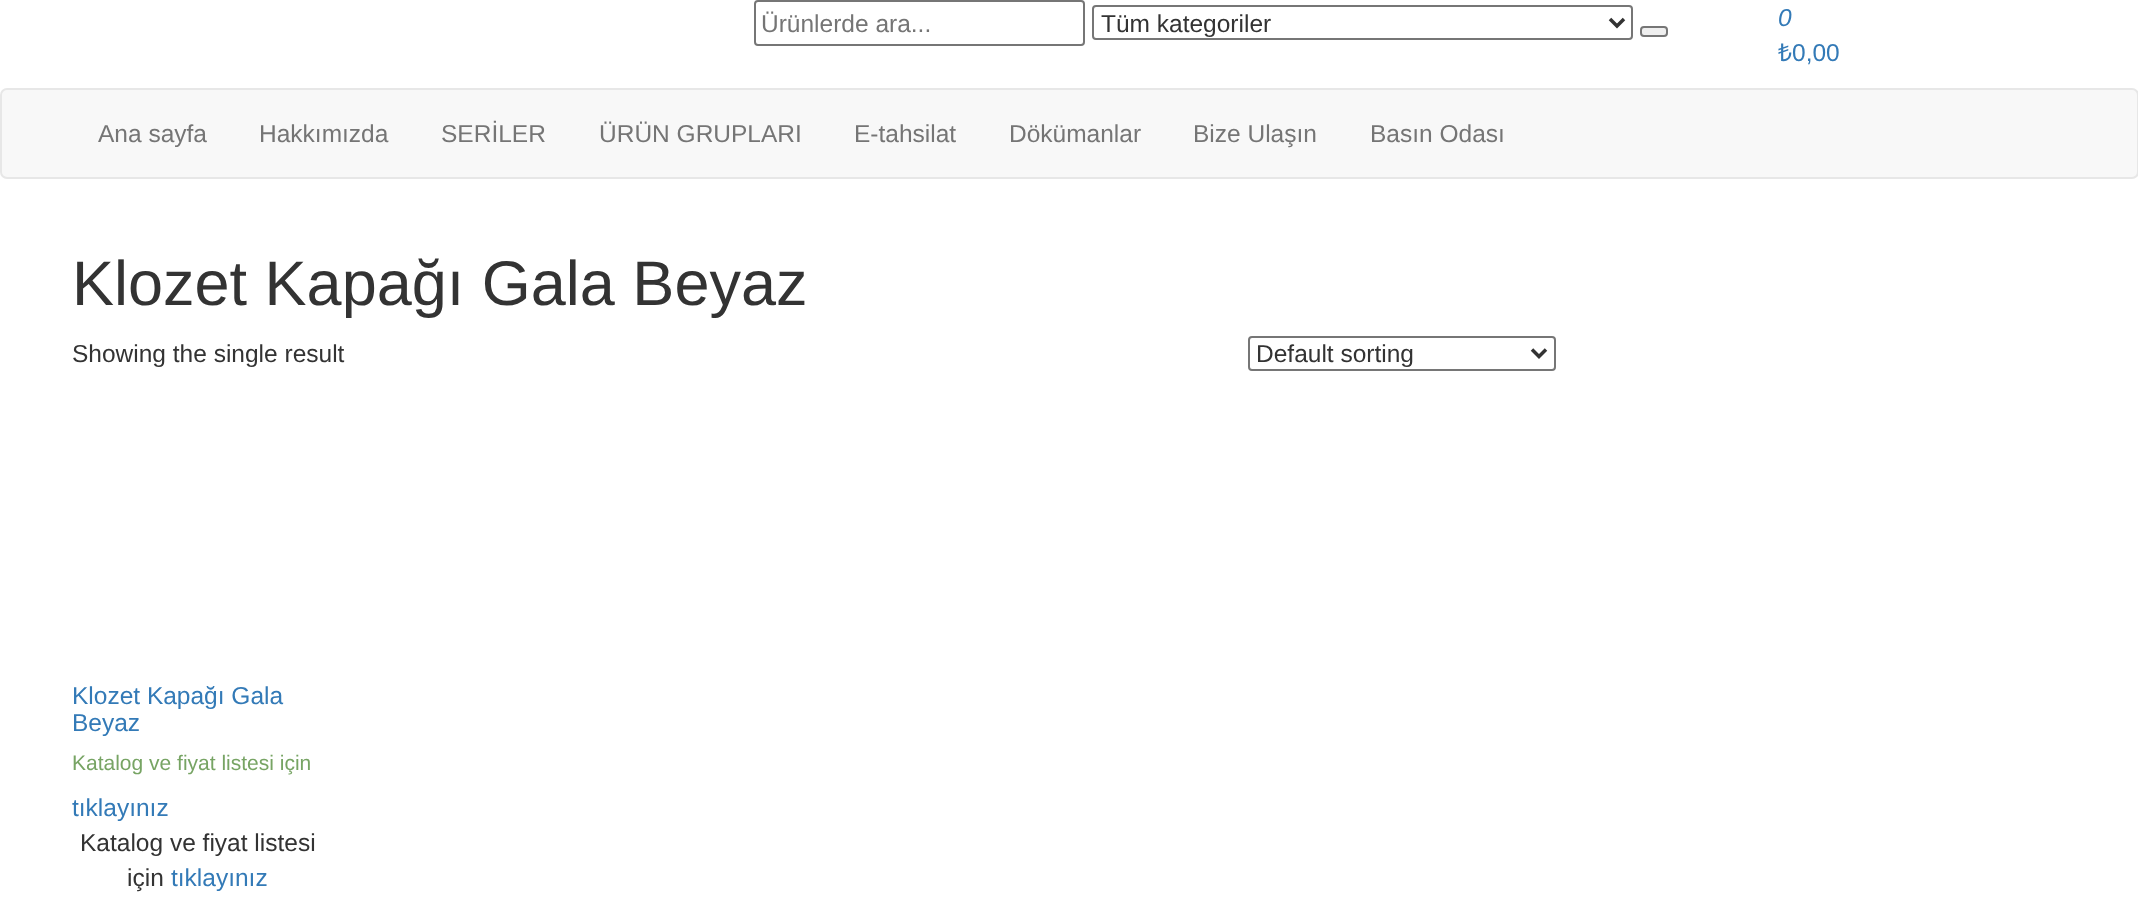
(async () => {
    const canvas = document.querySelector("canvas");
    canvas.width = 2138;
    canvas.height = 902;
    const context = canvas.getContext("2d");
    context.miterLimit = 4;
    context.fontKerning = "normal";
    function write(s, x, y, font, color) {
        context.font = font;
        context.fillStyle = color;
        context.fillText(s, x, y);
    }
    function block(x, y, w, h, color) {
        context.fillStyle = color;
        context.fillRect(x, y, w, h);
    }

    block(0, 0, 2138, 902, "rgb(255, 255, 255)");
    context.beginPath();
    context.roundRect(755, 1, 329, 44, 3);
    context.strokeStyle = "rgb(118, 118, 118)";
    context.lineWidth = 2;
    context.stroke();
    write("Ürünlerde ara...", 761, 32, "24.5px Liberation Sans", "rgb(117, 117, 117)");
    context.beginPath();
    context.roundRect(1093, 6, 539, 33, 3);
    context.stroke();
    context.beginPath();
    context.moveTo(1610, 19);
    context.lineTo(1617, 26);
    context.lineTo(1624, 19);
    context.strokeStyle = "rgb(51, 51, 51)";
    context.lineWidth = 3.5;
    context.stroke();
    write("Tüm kategoriler", 1101, 32, "24.5px Liberation Sans", "rgb(51, 51, 51)");
    context.fillStyle = "rgb(239, 239, 239)";
    context.beginPath();
    context.roundRect(1641, 27, 26, 9, 3);
    context.fill();
    context.strokeStyle = "rgb(118, 118, 118)";
    context.lineWidth = 2;
    context.stroke();
    write("0", 1778, 26, "italic 24.5px Liberation Sans", "rgb(51, 122, 183)");
    write("₺", 1778, 61, "24.5px Noto Sans", "rgb(51, 122, 183)");
    write("0,00", 1792, 61, "24.5px Liberation Sans", "rgb(51, 122, 183)");
    context.fillStyle = "rgb(248, 248, 248)";
    context.beginPath();
    context.roundRect(1, 89, 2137, 89, 6);
    context.fill();
    context.strokeStyle = "rgb(231, 231, 231)";
    context.stroke();
    write("Ana sayfa", 98, 142, "24.5px Liberation Sans", "rgb(117, 117, 117)");
    write("Hakkımızda", 259, 142, "24.5px Liberation Sans", "rgb(117, 117, 117)");
    write("SERİLER", 441, 142, "24.5px Liberation Sans", "rgb(117, 117, 117)");
    write("ÜRÜN GRUPLARI", 599, 142, "24.5px Liberation Sans", "rgb(117, 117, 117)");
    write("E-tahsilat", 854, 142, "24.5px Liberation Sans", "rgb(117, 117, 117)");
    write("Dökümanlar", 1009, 142, "24.5px Liberation Sans", "rgb(117, 117, 117)");
    write("Bize Ulaşın", 1193, 142, "24.5px Liberation Sans", "rgb(117, 117, 117)");
    write("Basın Odası", 1370, 142, "24.5px Liberation Sans", "rgb(117, 117, 117)");
    write("Klozet Kapağı Gala Beyaz", 72, 305, "63px Liberation Sans", "rgb(51, 51, 51)");
    write("Showing the single result", 72, 362, "24.5px Liberation Sans", "rgb(51, 51, 51)");
    context.beginPath();
    context.roundRect(1249, 337, 306, 33, 3);
    context.strokeStyle = "rgb(118, 118, 118)";
    context.stroke();
    context.beginPath();
    context.moveTo(1532, 349.5);
    context.lineTo(1539, 356.5);
    context.lineTo(1546, 349.5);
    context.strokeStyle = "rgb(51, 51, 51)";
    context.lineWidth = 3.5;
    context.stroke();
    write("Default sorting", 1256, 362, "24.5px Liberation Sans", "rgb(51, 51, 51)");
    write("Klozet Kapağı Gala", 72, 704, "24.5px Liberation Sans", "rgb(51, 122, 183)");
    write("Beyaz", 72, 731, "24.5px Liberation Sans", "rgb(51, 122, 183)");
    write("Katalog ve fiyat listesi için", 72, 770, "21px Liberation Sans", "rgb(119, 164, 100)");
    write("tıklayınız", 72, 816, "24.5px Liberation Sans", "rgb(51, 122, 183)");
    write("Katalog ve fiyat listesi", 80, 851, "24.5px Liberation Sans", "rgb(51, 51, 51)");
    write("için", 127, 886, "24.5px Liberation Sans", "rgb(51, 51, 51)");
    write("tıklayınız", 171, 886, "24.5px Liberation Sans", "rgb(51, 122, 183)");
})();
